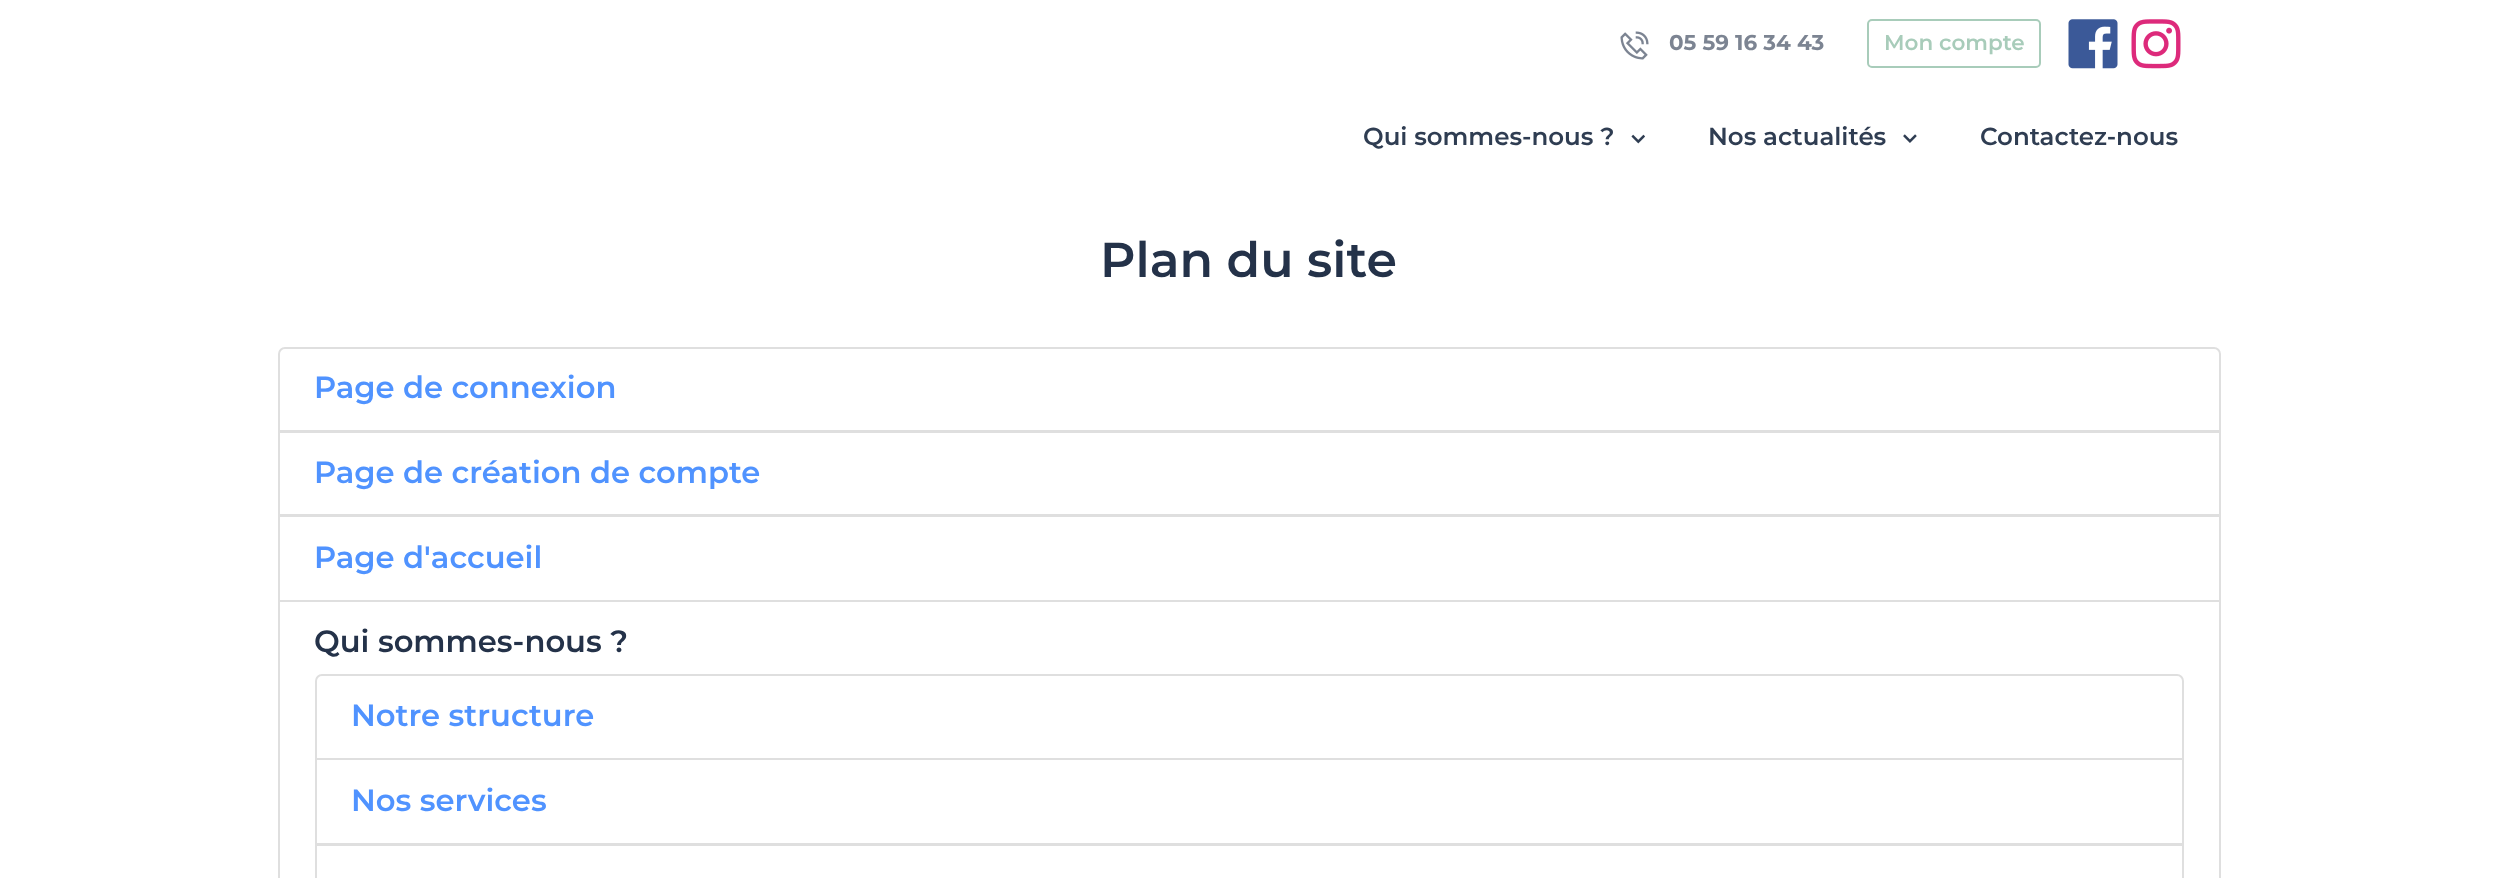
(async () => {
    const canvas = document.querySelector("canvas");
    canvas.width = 2497;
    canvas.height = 878;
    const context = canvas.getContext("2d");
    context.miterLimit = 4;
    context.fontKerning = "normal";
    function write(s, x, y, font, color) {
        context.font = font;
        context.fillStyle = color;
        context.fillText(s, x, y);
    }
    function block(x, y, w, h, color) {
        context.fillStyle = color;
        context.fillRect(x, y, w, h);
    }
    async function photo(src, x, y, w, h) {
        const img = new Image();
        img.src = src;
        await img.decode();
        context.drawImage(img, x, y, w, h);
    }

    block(0, 0, 2497, 878, "rgb(255, 255, 255)");
    await photo("media/1.png", 1620, 31, 29, 29);
    write("05 59 16 34 43", 1669, 50, "bold 21.5px Montserrat", "rgb(124, 132, 146)");
    context.beginPath();
    context.roundRect(1868, 20, 172, 47, 4);
    context.strokeStyle = "rgb(168, 204, 186)";
    context.lineWidth = 2;
    context.stroke();
    write("Mon compte", 1884, 50, "600 21.5px Montserrat", "rgb(168, 204, 186)");
    await photo("media/2.png", 2068, 19, 50, 50);
    await photo("media/3.png", 2131, 19, 50, 50);
    write("Qui sommes-nous ?", 1363, 145, "600 24.5px Montserrat", "rgb(47, 61, 82)");
    await photo("media/4.png", 1631, 134, 14, 10);
    write("Nos actualités", 1708, 145, "600 24.5px Montserrat", "rgb(47, 61, 82)");
    await photo("media/5.png", 1903, 134, 14, 9);
    write("Contactez-nous", 1980, 145, "600 24.5px Montserrat", "rgb(47, 61, 82)");
    write("Plan du site", 1100, 277, "600 49px Montserrat", "rgb(36, 50, 73)");
    context.beginPath();
    context.roundRect(279, 348, 1941, 83, [6, 6, 0, 0]);
    context.strokeStyle = "rgb(223, 223, 223)";
    context.stroke();
    write("Page de connexion", 314, 398, "600 30.6px Montserrat", "rgb(80, 147, 255)");
    context.strokeRect(279, 432, 1941, 83);
    write("Page de création de compte", 314, 483, "600 30.6px Montserrat", "rgb(80, 147, 255)");
    context.strokeRect(279, 516, 1941, 85);
    write("Page d'accueil", 314, 568, "600 30.6px Montserrat", "rgb(80, 147, 255)");
    context.strokeRect(279, 601, 1941, 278);
    write("Qui sommes-nous ?", 314, 652, "600 30.6px Montserrat", "rgb(36, 50, 73)");
    context.beginPath();
    context.roundRect(316, 675, 1867, 84, [6, 6, 0, 0]);
    context.stroke();
    write("Notre structure", 351, 726, "600 30.6px Montserrat", "rgb(80, 147, 255)");
    context.strokeRect(316, 759, 1867, 85);
    write("Nos services", 351, 811, "600 30.6px Montserrat", "rgb(80, 147, 255)");
    context.strokeRect(316, 845, 1867, 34);
})();
